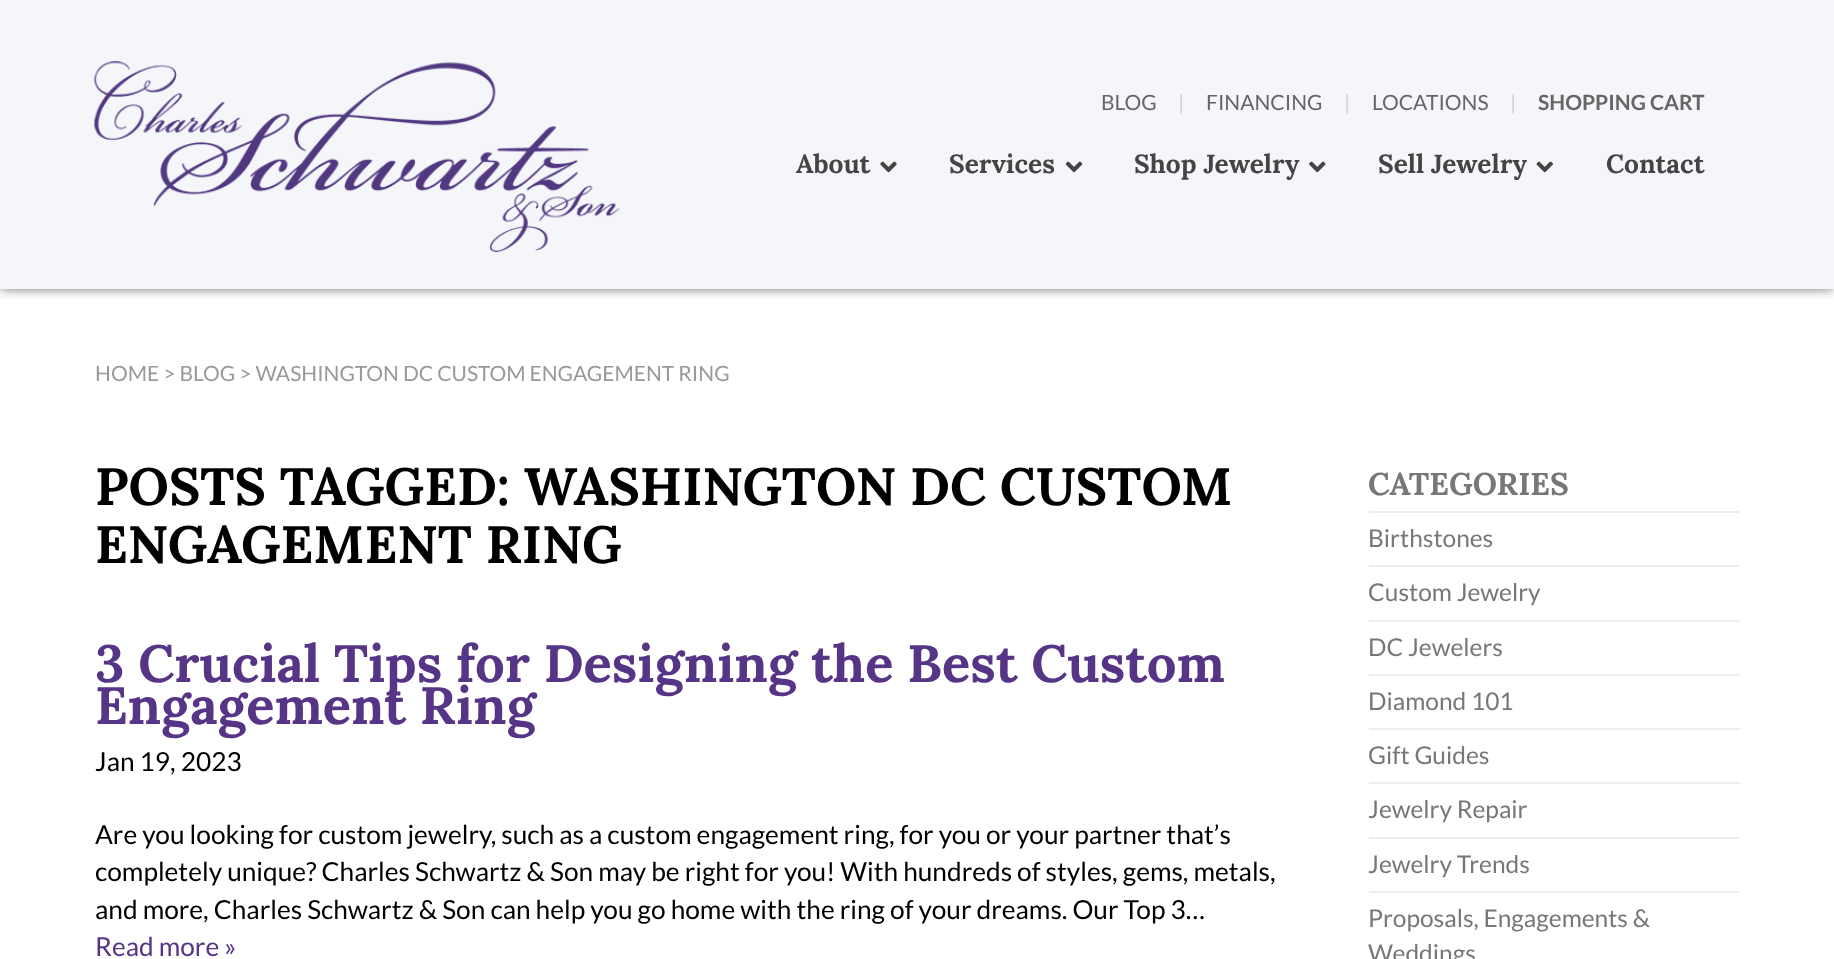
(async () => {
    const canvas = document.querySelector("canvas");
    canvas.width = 1834;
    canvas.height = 959;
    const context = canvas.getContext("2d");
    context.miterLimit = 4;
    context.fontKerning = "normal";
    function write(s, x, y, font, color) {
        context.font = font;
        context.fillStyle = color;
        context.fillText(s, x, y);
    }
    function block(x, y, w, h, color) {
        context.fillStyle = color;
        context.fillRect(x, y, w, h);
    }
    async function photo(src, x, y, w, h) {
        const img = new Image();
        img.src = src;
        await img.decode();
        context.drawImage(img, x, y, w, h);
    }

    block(0, 0, 1834, 959, "rgb(255, 255, 255)");
    context.fillStyle = "rgb(119, 119, 119)";
    context.filter = "blur(6px)";
    context.beginPath();
    context.rect(0, 0, 1834, 289);
    context.fill();
    context.filter = "none";
    block(0, 0, 1834, 289, "rgb(245, 246, 250)");
    await photo("media/1.png", 94, 61, 526, 191);
    write("BLOG", 1101, 110, "21px Lato", "rgb(102, 102, 102)");
    write("|", 1178, 110, "21px Lato", "rgb(208, 209, 213)");
    write("FINANCING", 1206, 110, "21px Lato", "rgb(102, 102, 102)");
    write("|", 1344, 110, "21px Lato", "rgb(208, 209, 213)");
    write("LOCATIONS", 1372, 110, "21px Lato", "rgb(102, 102, 102)");
    write("|", 1510, 110, "21px Lato", "rgb(208, 209, 213)");
    write("SHOPPING CART", 1538, 110, "bold 21px Lato", "rgb(102, 102, 102)");
    write("About", 796, 173, "bold 26.25px Lora", "rgb(68, 68, 68)");
    await photo("media/2.png", 880, 161, 17, 12);
    write("Services", 949, 173, "bold 26.25px Lora", "rgb(68, 68, 68)");
    await photo("media/3.png", 1065, 161, 18, 12);
    write("Shop Jewelry", 1134, 173, "bold 26.25px Lora", "rgb(68, 68, 68)");
    await photo("media/4.png", 1309, 161, 17, 12);
    write("Sell Jewelry", 1378, 173, "bold 26.25px Lora", "rgb(68, 68, 68)");
    await photo("media/5.png", 1536, 161, 17, 12);
    write("Contact", 1606, 173, "bold 26.25px Lora", "rgb(68, 68, 68)");
    write("HOME > BLOG > WASHINGTON DC CUSTOM ENGAGEMENT RING", 95, 381, "21px Lato", "rgb(153, 153, 153)");
    write("POSTS TAGGED: WASHINGTON DC CUSTOM", 95, 505, "bold 52.5px Lora", "rgb(0, 0, 0)");
    write("ENGAGEMENT RING", 95, 563, "bold 52.5px Lora", "rgb(0, 0, 0)");
    write("3 Crucial Tips for Designing the Best Custom", 95, 682, "bold 52.5px Lora", "rgb(86, 52, 134)");
    write("Engagement Ring", 95, 724, "bold 52.5px Lora", "rgb(86, 52, 134)");
    write("Jan 19, 2023", 95, 771, "26.25px Lato", "rgb(0, 0, 0)");
    write("Are you looking for custom jewelry, such as a custom engagement ring, for you or your partner that’s", 95, 844, "26.25px Lato", "rgb(0, 0, 0)");
    write("completely unique? Charles Schwartz & Son may be right for you! With hundreds of styles, gems, metals,", 95, 881, "26.25px Lato", "rgb(0, 0, 0)");
    write("and more, Charles Schwartz & Son can help you go home with the ring of your dreams. Our Top 3…", 95, 919, "26.25px Lato", "rgb(0, 0, 0)");
    write("Read more »", 95, 956, "26.25px Lato", "rgb(86, 52, 134)");
    block(1369, 511, 371, 2, "rgb(238, 238, 238)");
    write("CATEGORIES", 1368, 495, "bold 31.5px Lora", "rgb(119, 119, 119)");
    block(1369, 565, 371, 2, "rgb(238, 238, 238)");
    write("Birthstones", 1368, 547, "24.5px Lato", "rgb(119, 119, 119)");
    block(1369, 620, 371, 2, "rgb(238, 238, 238)");
    write("Custom Jewelry", 1368, 601, "24.5px Lato", "rgb(119, 119, 119)");
    block(1369, 674, 371, 2, "rgb(238, 238, 238)");
    write("DC Jewelers", 1368, 656, "24.5px Lato", "rgb(119, 119, 119)");
    block(1369, 728, 371, 2, "rgb(238, 238, 238)");
    write("Diamond 101", 1368, 710, "24.5px Lato", "rgb(119, 119, 119)");
    block(1369, 782, 371, 2, "rgb(238, 238, 238)");
    write("Gift Guides", 1368, 764, "24.5px Lato", "rgb(119, 119, 119)");
    block(1369, 837, 371, 2, "rgb(238, 238, 238)");
    write("Jewelry Repair", 1368, 818, "24.5px Lato", "rgb(119, 119, 119)");
    block(1369, 891, 371, 2, "rgb(238, 238, 238)");
    write("Jewelry Trends", 1368, 873, "24.5px Lato", "rgb(119, 119, 119)");
    write("Proposals, Engagements &", 1368, 927, "24.5px Lato", "rgb(119, 119, 119)");
    write("Weddings", 1368, 962, "24.5px Lato", "rgb(119, 119, 119)");
})();
